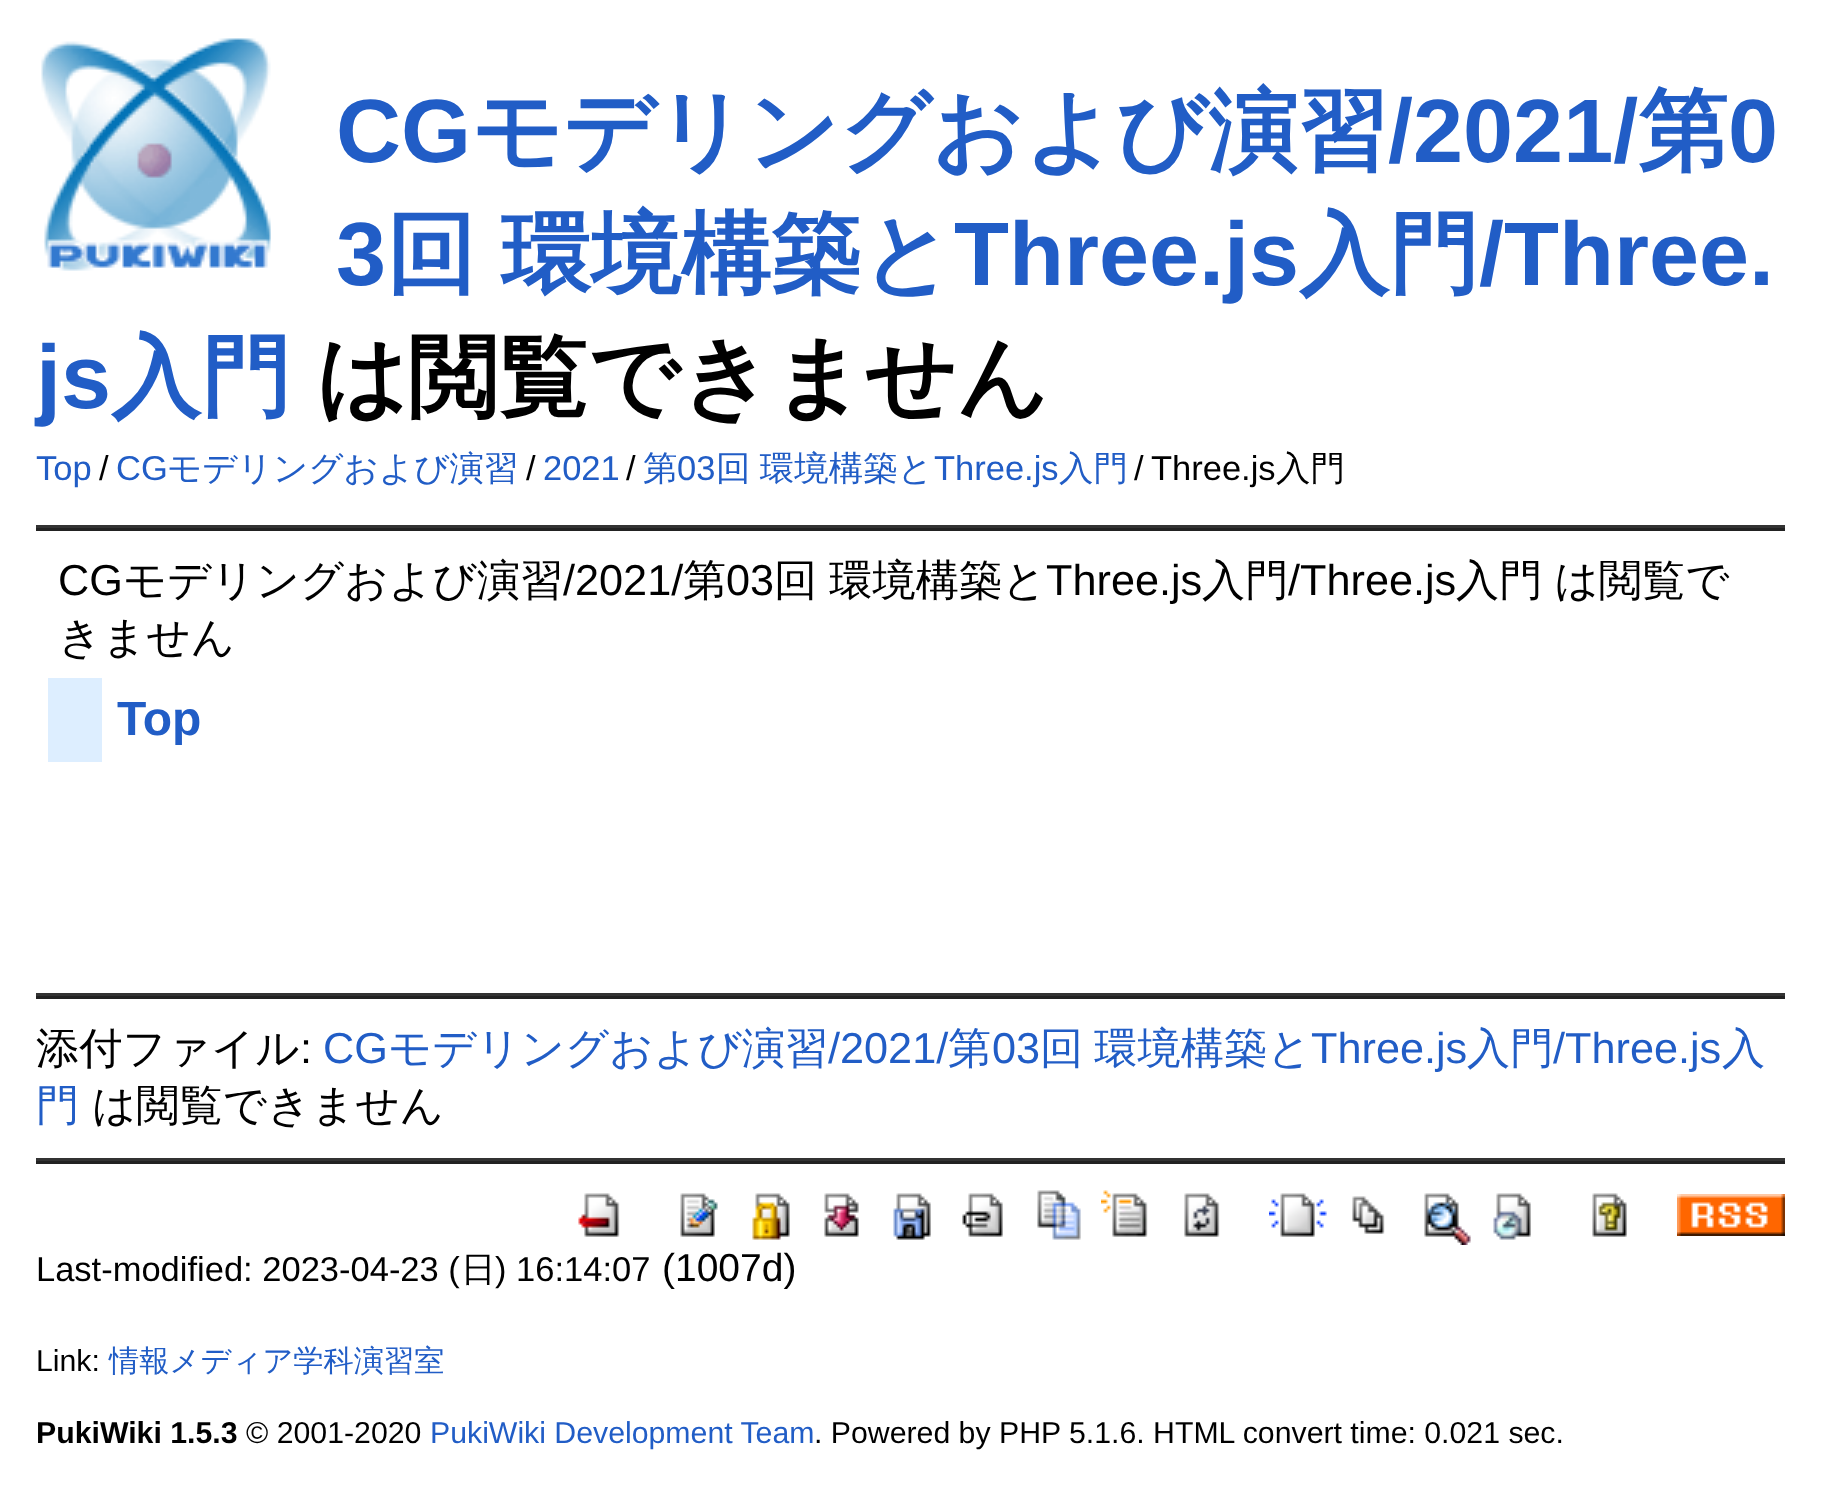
(async () => {
    const canvas = document.querySelector("canvas");
    canvas.width = 1821;
    canvas.height = 1507;
    const context = canvas.getContext("2d");
    context.miterLimit = 4;
    context.fontKerning = "normal";
    function write(s, x, y, font, color) {
        context.font = font;
        context.fillStyle = color;
        context.fillText(s, x, y);
    }
    function block(x, y, w, h, color) {
        context.fillStyle = color;
        context.fillRect(x, y, w, h);
    }
    async function photo(src, x, y, w, h) {
        const img = new Image();
        img.src = src;
        await img.decode();
        context.drawImage(img, x, y, w, h);
    }

    block(0, 0, 1821, 1507, "rgb(255, 255, 255)");
    await photo("media/1.png", 41, 38, 230, 233);
    write("CG", 336, 162, "bold 90px Liberation Sans", "rgb(33, 93, 198)");
    write("モデリングおよび演習", 471, 162, "bold 90px WenQuanYi Zen Hei", "rgb(33, 93, 198)");
    write("/2021/", 1388, 162, "bold 90px Liberation Sans", "rgb(33, 93, 198)");
    write("第", 1638, 162, "bold 90px WenQuanYi Zen Hei", "rgb(33, 93, 198)");
    write("0", 1728, 162, "bold 90px Liberation Sans", "rgb(33, 93, 198)");
    write("3", 336, 285, "bold 90px Liberation Sans", "rgb(33, 93, 198)");
    context.wordSpacing = "-2px";
    write("回 環境構築と", 386, 285, "bold 90px WenQuanYi Zen Hei", "rgb(33, 93, 198)");
    context.wordSpacing = "0px";
    write("Three.js", 954, 285, "bold 90px Liberation Sans", "rgb(33, 93, 198)");
    write("入門", 1299, 285, "bold 90px WenQuanYi Zen Hei", "rgb(33, 93, 198)");
    write("/Three.", 1479, 285, "bold 90px Liberation Sans", "rgb(33, 93, 198)");
    write("js", 36, 408, "bold 90px Liberation Sans", "rgb(33, 93, 198)");
    write("入門", 111, 408, "bold 90px WenQuanYi Zen Hei", "rgb(33, 93, 198)");
    write("は閲覧できません", 316, 408, "bold 90px WenQuanYi Zen Hei", "rgb(0, 0, 0)");
    write("Top", 36, 480, "34.5px Liberation Sans", "rgb(33, 93, 198)");
    write("/", 99, 480, "34.5px Liberation Sans", "rgb(0, 0, 0)");
    write("CG", 116, 480, "34.5px Liberation Sans", "rgb(33, 93, 198)");
    write("モデリングおよび演習", 167, 480, "500 34.5px WenQuanYi Zen Hei", "rgb(33, 93, 198)");
    write("/", 526, 480, "34.5px Liberation Sans", "rgb(0, 0, 0)");
    write("2021", 543, 480, "34.5px Liberation Sans", "rgb(33, 93, 198)");
    write("/", 626, 480, "34.5px Liberation Sans", "rgb(0, 0, 0)");
    write("第", 643, 480, "500 34.5px WenQuanYi Zen Hei", "rgb(33, 93, 198)");
    write("03", 677, 480, "34.5px Liberation Sans", "rgb(33, 93, 198)");
    context.wordSpacing = "-1px";
    write("回 環境構築と", 716, 480, "500 34.5px WenQuanYi Zen Hei", "rgb(33, 93, 198)");
    context.wordSpacing = "0px";
    write("Three.js", 934, 480, "34.5px Liberation Sans", "rgb(33, 93, 198)");
    write("入門", 1059, 480, "500 34.5px WenQuanYi Zen Hei", "rgb(33, 93, 198)");
    write("/", 1134, 480, "34.5px Liberation Sans", "rgb(0, 0, 0)");
    write("Three.js", 1151, 480, "34.5px Liberation Sans", "rgb(0, 0, 0)");
    write("入門", 1276, 480, "500 34.5px WenQuanYi Zen Hei", "rgb(0, 0, 0)");
    block(36, 525, 1749, 3, "rgb(51, 51, 51)");
    block(36, 528, 1749, 3, "rgb(34, 34, 34)");
    write("CG", 58, 595, "43.25px Liberation Sans", "rgb(0, 0, 0)");
    write("モデリングおよび演習", 123, 595, "500 43.25px WenQuanYi Zen Hei", "rgb(0, 0, 0)");
    write("/2021/", 563, 595, "43.25px Liberation Sans", "rgb(0, 0, 0)");
    write("第", 683, 595, "500 43.25px WenQuanYi Zen Hei", "rgb(0, 0, 0)");
    write("03", 726, 595, "43.25px Liberation Sans", "rgb(0, 0, 0)");
    context.wordSpacing = "-1px";
    write("回 環境構築と", 774, 595, "500 43.25px WenQuanYi Zen Hei", "rgb(0, 0, 0)");
    context.wordSpacing = "0px";
    write("Three.js", 1046, 595, "43.25px Liberation Sans", "rgb(0, 0, 0)");
    write("入門", 1202, 595, "500 43.25px WenQuanYi Zen Hei", "rgb(0, 0, 0)");
    write("/Three.js", 1288, 595, "43.25px Liberation Sans", "rgb(0, 0, 0)");
    context.wordSpacing = "-1px";
    write("入門 は閲覧で", 1456, 595, "500 43.25px WenQuanYi Zen Hei", "rgb(0, 0, 0)");
    context.wordSpacing = "0px";
    write("きません", 58, 652, "500 43.25px WenQuanYi Zen Hei", "rgb(0, 0, 0)");
    block(48, 678, 54, 84, "rgb(221, 238, 255)");
    write("Top", 117, 735, "bold 48px Liberation Sans", "rgb(33, 93, 198)");
    block(36, 993, 1749, 3, "rgb(51, 51, 51)");
    block(36, 996, 1749, 3, "rgb(34, 34, 34)");
    write("添付ファイル", 36, 1063, "500 43.25px WenQuanYi Zen Hei", "rgb(0, 0, 0)");
    write(":", 300, 1063, "43.25px Liberation Sans", "rgb(0, 0, 0)");
    write("CG", 323, 1063, "43.25px Liberation Sans", "rgb(33, 93, 198)");
    write("モデリングおよび演習", 388, 1063, "500 43.25px WenQuanYi Zen Hei", "rgb(33, 93, 198)");
    write("/2021/", 828, 1063, "43.25px Liberation Sans", "rgb(33, 93, 198)");
    write("第", 948, 1063, "500 43.25px WenQuanYi Zen Hei", "rgb(33, 93, 198)");
    write("03", 992, 1063, "43.25px Liberation Sans", "rgb(33, 93, 198)");
    context.wordSpacing = "-2px";
    write("回 環境構築と", 1040, 1063, "500 43.25px WenQuanYi Zen Hei", "rgb(33, 93, 198)");
    context.wordSpacing = "0px";
    write("Three.js", 1311, 1063, "43.25px Liberation Sans", "rgb(33, 93, 198)");
    write("入門", 1467, 1063, "500 43.25px WenQuanYi Zen Hei", "rgb(33, 93, 198)");
    write("/Three.js", 1553, 1063, "43.25px Liberation Sans", "rgb(33, 93, 198)");
    write("入", 1722, 1063, "500 43.25px WenQuanYi Zen Hei", "rgb(33, 93, 198)");
    write("門", 36, 1120, "500 43.25px WenQuanYi Zen Hei", "rgb(33, 93, 198)");
    write("は閲覧できません", 92, 1120, "500 43.25px WenQuanYi Zen Hei", "rgb(0, 0, 0)");
    block(36, 1158, 1749, 3, "rgb(51, 51, 51)");
    block(36, 1161, 1749, 3, "rgb(34, 34, 34)");
    await photo("media/2.png", 578, 1193, 42, 44);
    await photo("media/3.png", 680, 1193, 38, 44);
    await photo("media/4.png", 752, 1193, 38, 47);
    await photo("media/5.png", 824, 1193, 35, 44);
    await photo("media/6.png", 893, 1193, 38, 47);
    await photo("media/7.png", 962, 1193, 41, 44);
    await photo("media/8.png", 1037, 1190, 44, 50);
    await photo("media/9.png", 1101, 1190, 47, 47);
    await photo("media/10.png", 1184, 1193, 36, 44);
    await photo("media/11.png", 1269, 1193, 58, 44);
    await photo("media/12.png", 1352, 1196, 33, 38);
    await photo("media/13.png", 1424, 1193, 47, 52);
    await photo("media/14.png", 1493, 1193, 38, 47);
    await photo("media/15.png", 1592, 1193, 35, 44);
    await photo("media/16.png", 1677, 1194, 108, 42);
    write("Last-modified: 2023-04-23 (", 36, 1281, "34.5px Liberation Sans", "rgb(0, 0, 0)");
    write("日", 461, 1281, "500 34.5px WenQuanYi Zen Hei", "rgb(0, 0, 0)");
    write(") 16:14:07", 495, 1281, "34.5px Liberation Sans", "rgb(0, 0, 0)");
    write("(1007d)", 662, 1281, "39px Liberation Sans", "rgb(0, 0, 0)");
    write("Link:", 36, 1371, "30.25px Liberation Sans", "rgb(0, 0, 0)");
    write("情報メディア学科演習室", 109, 1371, "500 30.25px WenQuanYi Zen Hei", "rgb(33, 93, 198)");
    write("PukiWiki 1.5.3", 36, 1443, "bold 30.25px Liberation Sans", "rgb(0, 0, 0)");
    write("© 2001-2020", 246, 1443, "30.25px Liberation Sans", "rgb(0, 0, 0)");
    write("PukiWiki Development Team", 430, 1443, "30.25px Liberation Sans", "rgb(33, 93, 198)");
    write(". Powered by PHP 5.1.6. HTML convert time: 0.021 sec.", 814, 1443, "30.25px Liberation Sans", "rgb(0, 0, 0)");
})();
